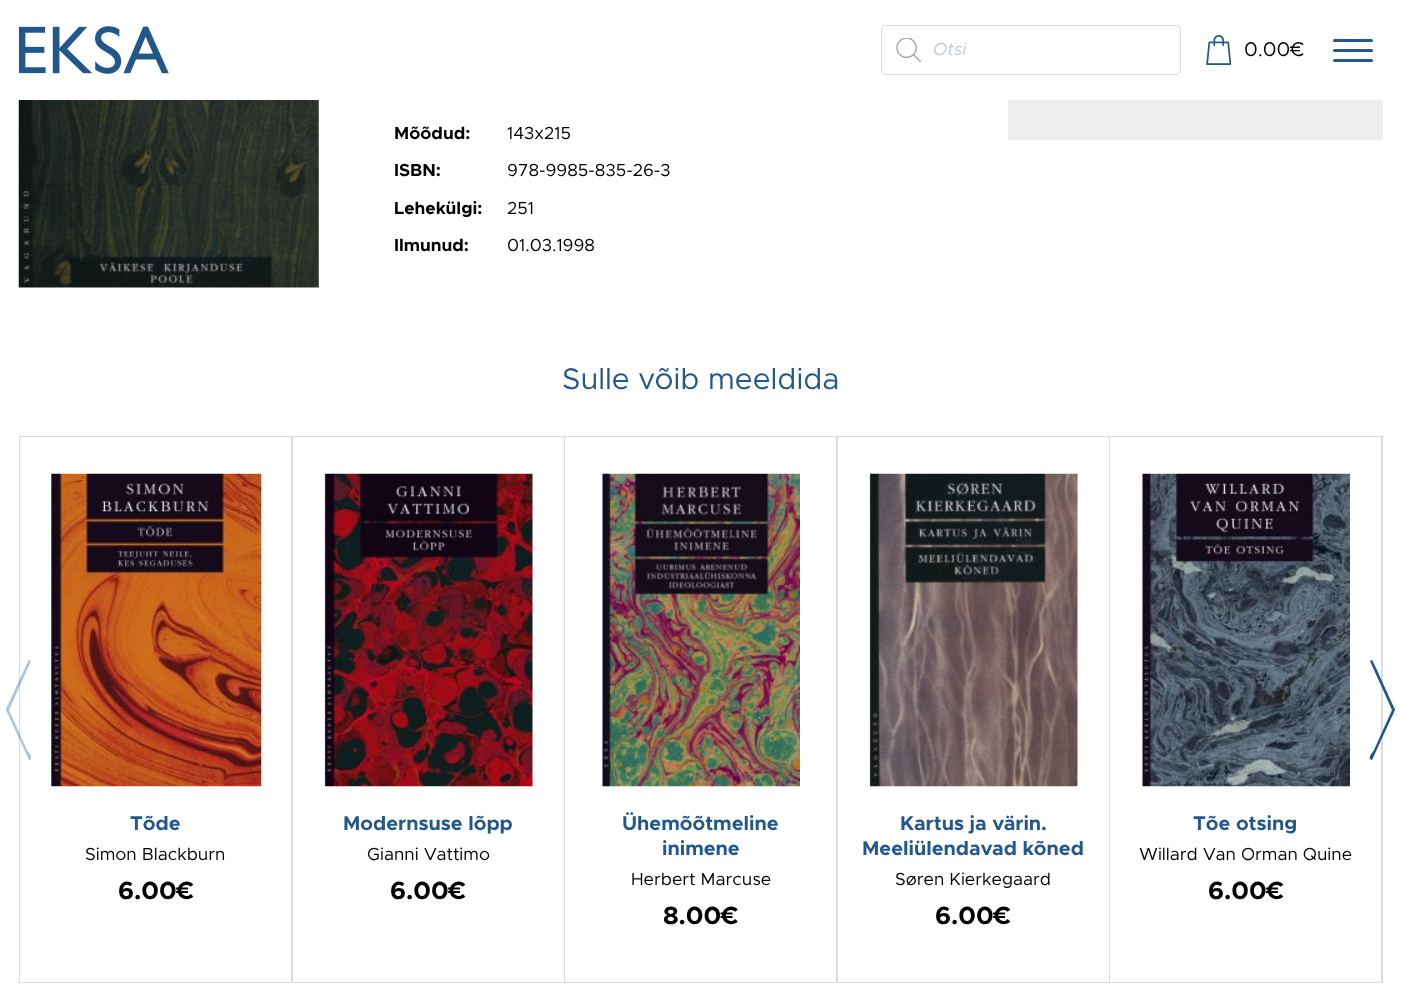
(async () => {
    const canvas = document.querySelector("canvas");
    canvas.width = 1401;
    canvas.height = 989;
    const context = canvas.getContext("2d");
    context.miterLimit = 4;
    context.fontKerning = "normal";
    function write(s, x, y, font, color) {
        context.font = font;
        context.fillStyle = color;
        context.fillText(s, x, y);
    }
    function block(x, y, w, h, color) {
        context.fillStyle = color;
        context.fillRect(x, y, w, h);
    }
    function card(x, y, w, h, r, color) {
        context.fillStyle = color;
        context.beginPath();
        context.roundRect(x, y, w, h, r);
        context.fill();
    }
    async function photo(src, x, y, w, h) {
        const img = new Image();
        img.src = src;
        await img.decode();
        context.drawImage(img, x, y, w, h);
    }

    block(0, 0, 1401, 989, "rgb(255, 255, 255)");
    await photo("media/1.png", 19, 26, 150, 48);
    context.beginPath();
    context.roundRect(881.5, 25.5, 299, 49, 4.5);
    context.strokeStyle = "rgb(220, 220, 220)";
    context.stroke();
    await photo("media/2.png", 896, 38, 25, 25);
    write("Otsi", 933, 55, "italic 17.5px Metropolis", "rgb(194, 202, 210)");
    await photo("media/3.png", 1206, 35, 25, 30);
    write("0.00€", 1244, 56, "20px Metropolis", "rgb(0, 0, 0)");
    card(1333, 39, 40, 3, 1.5, "rgb(34, 88, 140)");
    card(1333, 49, 40, 3, 1.5, "rgb(34, 88, 140)");
    card(1333, 59, 40, 3, 1.5, "rgb(34, 88, 140)");
    await photo("media/4.png", 18, 100, 301, 188);
    block(1008, 100, 375, 40, "rgb(238, 238, 238)");
    write("Mõõdud:", 394, 139, "bold 17.5px Metropolis", "rgb(0, 0, 0)");
    write("143x215", 507, 139, "17.5px Metropolis", "rgb(0, 0, 0)");
    write("ISBN:", 394, 176, "bold 17.5px Metropolis", "rgb(0, 0, 0)");
    write("978-9985-835-26-3", 507, 176, "17.5px Metropolis", "rgb(0, 0, 0)");
    write("Lehekülgi:", 394, 214, "bold 17.5px Metropolis", "rgb(0, 0, 0)");
    write("251", 507, 214, "17.5px Metropolis", "rgb(0, 0, 0)");
    write("Ilmunud:", 394, 251, "bold 17.5px Metropolis", "rgb(0, 0, 0)");
    write("01.03.1998", 507, 251, "17.5px Metropolis", "rgb(0, 0, 0)");
    write("Sulle võib meeldida", 562, 389, "30px Metropolis", "rgb(34, 88, 140)");
    context.strokeRect(19.5, 436.5, 273, 546);
    context.save();
    context.beginPath();
    context.rect(6, 660, 25, 100);
    context.clip();
    context.fillStyle = "rgba(33, 87, 138, 0.35)";
    context.beginPath();
    context.moveTo(6, 709);
    context.bezierCurveTo(9, 704, 28, 660, 29, 660);
    context.bezierCurveTo(30, 660, 31, 661, 31, 661);
    context.lineTo(9, 710);
    context.lineTo(27, 750);
    context.bezierCurveTo(29, 753, 33, 756, 31, 759);
    context.bezierCurveTo(31, 760, 30, 760, 29, 760);
    context.lineTo(6, 710);
    context.closePath();
    context.fill();
    context.restore();
    context.strokeRect(291.5, 436.5, 273, 546);
    context.strokeRect(564.5, 436.5, 273, 546);
    context.strokeRect(836.5, 436.5, 273, 546);
    context.strokeRect(1109.5, 436.5, 273, 546);
    context.save();
    context.beginPath();
    context.rect(19, 436, 1364, 548);
    context.clip();
    context.strokeRect(1381.5, 436.5, 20, 546);
    context.restore();
    context.fillStyle = "rgb(33, 87, 138)";
    context.beginPath();
    context.moveTo(1395, 709);
    context.bezierCurveTo(1392, 704, 1373, 660, 1372, 660);
    context.bezierCurveTo(1371, 660, 1370, 661, 1370, 661);
    context.lineTo(1392, 710);
    context.lineTo(1374, 750);
    context.bezierCurveTo(1372, 753, 1369, 756, 1370, 759);
    context.bezierCurveTo(1371, 760, 1372, 760, 1372, 760);
    context.lineTo(1395, 710);
    context.closePath();
    context.fill();
    await photo("media/5.png", 51, 473, 211, 314);
    write("Tõde", 130, 830, "bold 20px Metropolis", "rgb(34, 88, 140)");
    write("Simon Blackburn", 85, 860, "17.5px Metropolis", "rgb(0, 0, 0)");
    write("6.00€", 118, 899, "bold 25px Metropolis", "rgb(0, 0, 0)");
    await photo("media/6.png", 324, 473, 209, 314);
    write("Modernsuse lõpp", 343, 830, "bold 20px Metropolis", "rgb(34, 88, 140)");
    write("Gianni Vattimo", 367, 860, "17.5px Metropolis", "rgb(0, 0, 0)");
    write("6.00€", 390, 899, "bold 25px Metropolis", "rgb(0, 0, 0)");
    await photo("media/7.png", 602, 473, 198, 314);
    write("Ühemõõtmeline", 622, 830, "bold 20px Metropolis", "rgb(34, 88, 140)");
    write("inimene", 662, 855, "bold 20px Metropolis", "rgb(34, 88, 140)");
    write("Herbert Marcuse", 631, 885, "17.5px Metropolis", "rgb(0, 0, 0)");
    write("8.00€", 663, 924, "bold 25px Metropolis", "rgb(0, 0, 0)");
    await photo("media/8.png", 869, 473, 209, 314);
    write("Kartus ja värin.", 900, 830, "bold 20px Metropolis", "rgb(34, 88, 140)");
    write("Meeliülendavad kõned", 862, 855, "bold 20px Metropolis", "rgb(34, 88, 140)");
    write("Søren Kierkegaard", 895, 885, "17.5px Metropolis", "rgb(0, 0, 0)");
    write("6.00€", 935, 924, "bold 25px Metropolis", "rgb(0, 0, 0)");
    await photo("media/9.png", 1142, 473, 208, 314);
    write("Tõe otsing", 1193, 830, "bold 20px Metropolis", "rgb(34, 88, 140)");
    write("Willard Van Orman Quine", 1139, 860, "17.5px Metropolis", "rgb(0, 0, 0)");
    write("6.00€", 1208, 899, "bold 25px Metropolis", "rgb(0, 0, 0)");
})();
